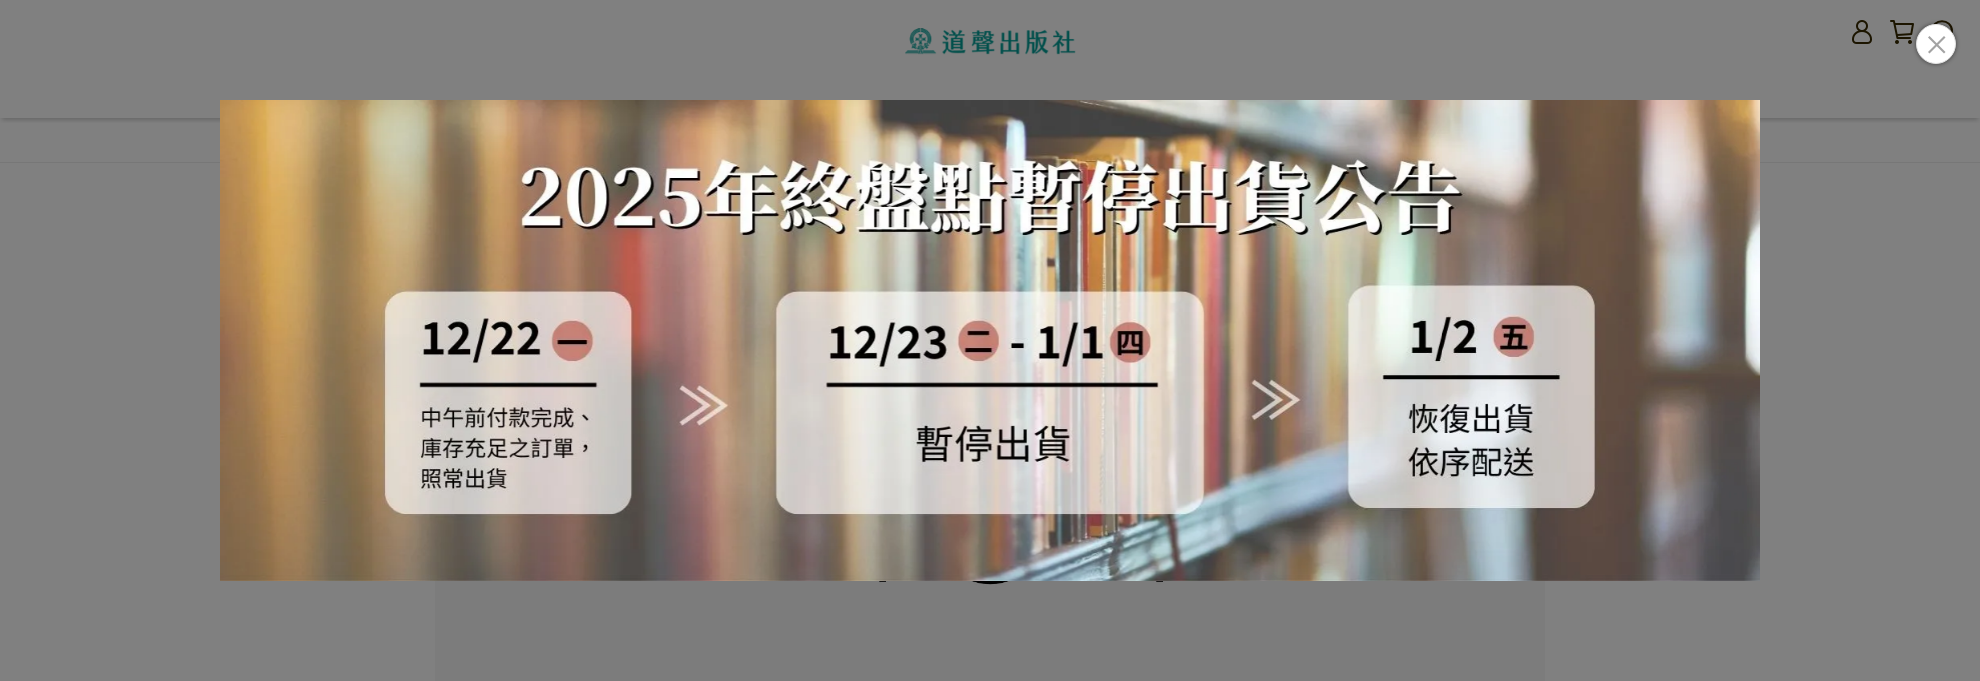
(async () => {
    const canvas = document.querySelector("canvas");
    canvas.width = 1980;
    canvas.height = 681;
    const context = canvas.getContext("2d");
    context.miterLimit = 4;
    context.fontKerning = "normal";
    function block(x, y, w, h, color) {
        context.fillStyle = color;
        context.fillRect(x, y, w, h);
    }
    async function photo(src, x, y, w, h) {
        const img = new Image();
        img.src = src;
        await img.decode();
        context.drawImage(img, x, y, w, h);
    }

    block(0, 0, 1980, 681, "rgb(128, 128, 128)");
    await photo("media/4.png", 1890, 20, 24, 24);
    context.beginPath();
    context.moveTo(1952, 31);
    context.bezierCurveTo(1952, 44, 1932, 44, 1932, 31);
    context.bezierCurveTo(1932, 18, 1952, 18, 1952, 31);
    context.closePath();
    context.strokeStyle = "rgb(29, 21, 1)";
    context.lineWidth = 2;
    context.lineCap = "round";
    context.lineJoin = "round";
    context.stroke();
    context.fillStyle = "rgba(0, 0, 0, 0.5)";
    context.filter = "blur(2px)";
    context.beginPath();
    context.roundRect(1916, 24, 40, 40, 20);
    context.fill();
    context.filter = "none";
    context.fillStyle = "rgb(255, 255, 255)";
    context.beginPath();
    context.arc(1936, 44, 19.5, 0, Math.PI * 2);
    context.fill();
    context.strokeStyle = "rgb(226, 226, 226)";
    context.lineWidth = 1;
    context.stroke();
    context.fillStyle = "rgb(163, 163, 163)";
    context.beginPath();
    context.moveTo(1929.5, 36);
    context.lineTo(1945.5, 52);
    context.lineTo(1944, 53.5);
    context.lineTo(1928, 37.5);
    context.closePath();
    context.fill();
    context.beginPath();
    context.moveTo(1928, 52);
    context.lineTo(1944, 36);
    context.lineTo(1945.5, 37.5);
    context.lineTo(1929.5, 53.5);
    context.closePath();
    context.fill();
    context.save();
    context.beginPath();
    context.rect(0, 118, 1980, 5);
    context.clip();
    context.fillStyle = "rgba(0, 0, 0, 0.2)";
    context.filter = "blur(2px)";
    context.beginPath();
    context.rect(2, 87, 1976, 33);
    context.fill();
    context.filter = "none";
    context.restore();
    block(0, 162, 1980, 1, "rgb(119, 119, 119)");
    await photo("media/1.png", 220, 100, 1540, 481);
    await photo("media/2.png", 905, 28, 171, 27);
    await photo("media/3.png", 1852, 20, 20, 24);
    await photo("media/5.png", 435, 581, 1110, 100);
})();
